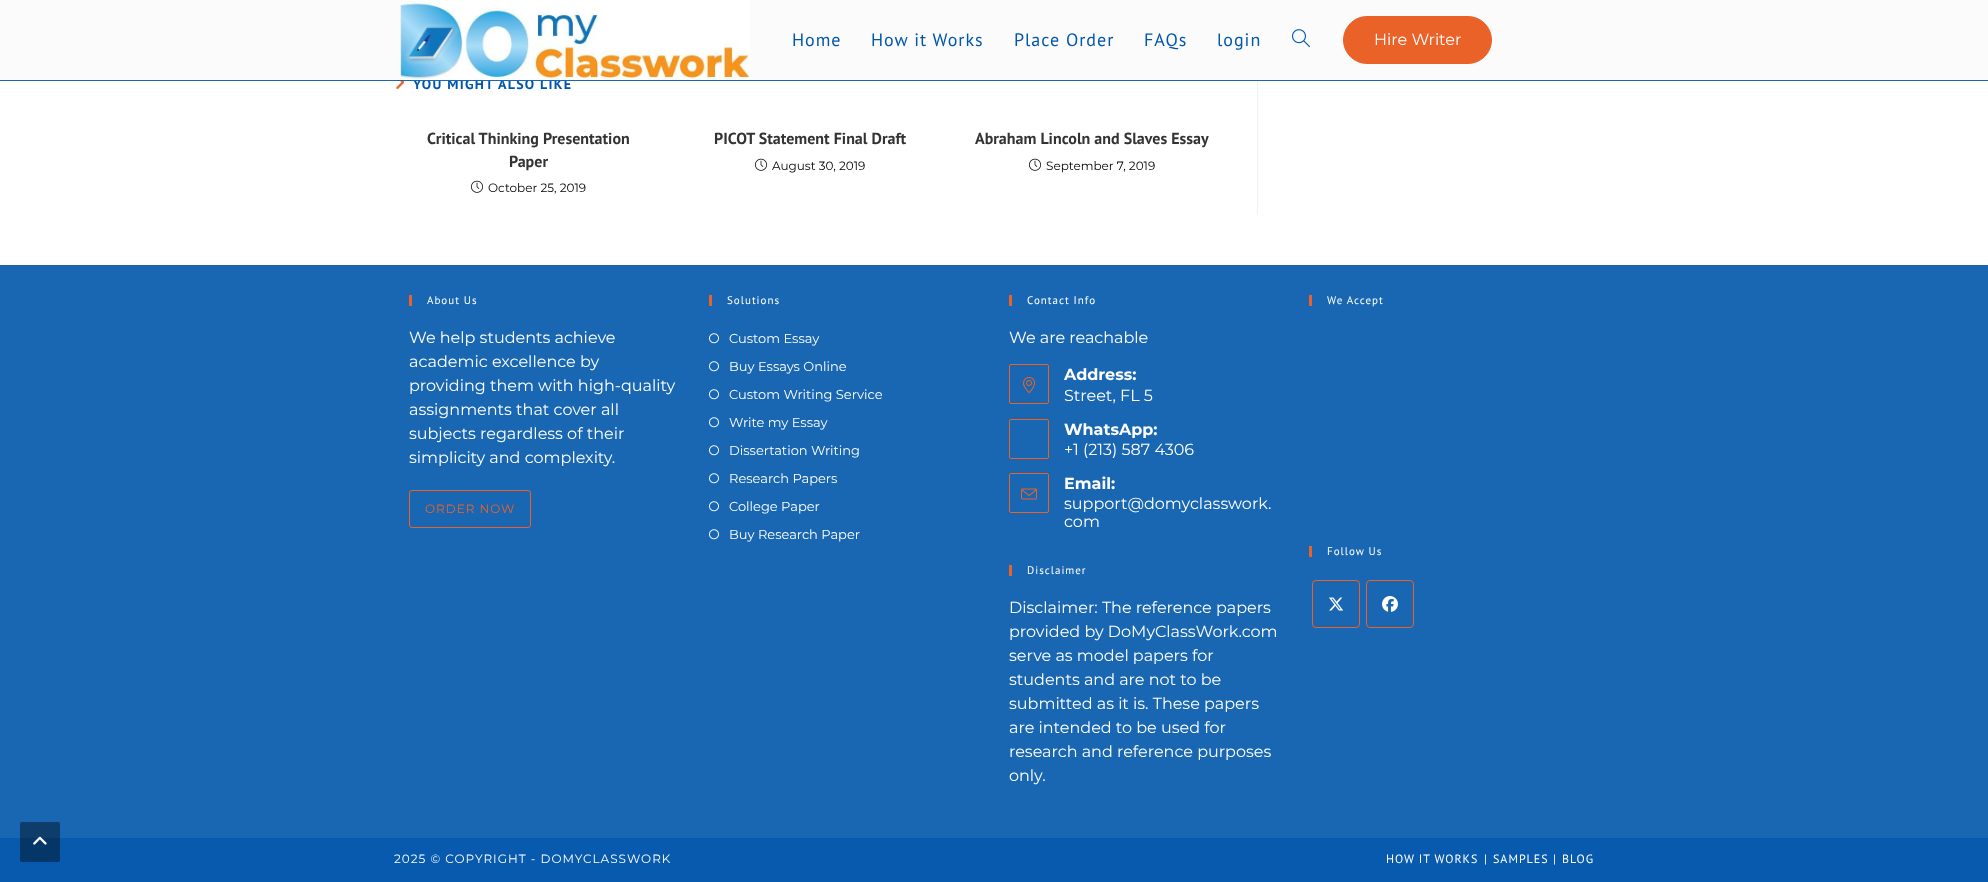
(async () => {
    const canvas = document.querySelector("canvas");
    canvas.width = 1988;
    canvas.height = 882;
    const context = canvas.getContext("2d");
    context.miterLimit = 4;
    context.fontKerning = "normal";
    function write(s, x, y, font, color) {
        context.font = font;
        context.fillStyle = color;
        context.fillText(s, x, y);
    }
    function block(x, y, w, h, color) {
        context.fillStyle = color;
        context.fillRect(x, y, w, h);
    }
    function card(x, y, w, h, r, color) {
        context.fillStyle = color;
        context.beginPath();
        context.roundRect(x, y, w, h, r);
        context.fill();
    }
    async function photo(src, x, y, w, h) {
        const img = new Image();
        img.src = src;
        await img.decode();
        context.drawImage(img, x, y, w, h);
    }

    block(0, 0, 1988, 882, "rgb(255, 255, 255)");
    block(0, 265, 1988, 573, "rgb(25, 103, 179)");
    block(0, 838, 1988, 44, "rgb(7, 90, 174)");
    card(20, 822, 40, 40, 2, "rgba(0, 0, 0, 0.4)");
    await photo("media/1.png", 33, 836, 14, 9);
    context.letterSpacing = "1.25px";
    write("YOU MIGHT ALSO LIKE", 413, 89, "bold 14px PT Sans", "rgb(0, 86, 173)");
    block(0, 0, 1988, 80, "rgb(251, 251, 251)");
    block(0, 80, 1988, 1, "rgb(25, 103, 179)");
    await photo("media/2.png", 400, 0, 350, 80);
    context.letterSpacing = "1px";
    write("Home", 792, 46, "18px PT Sans", "rgb(0, 86, 173)");
    write("How it Works", 871, 46, "18px PT Sans", "rgb(0, 86, 173)");
    write("Place Order", 1014, 46, "18px PT Sans", "rgb(0, 86, 173)");
    write("FAQs", 1144, 46, "18px PT Sans", "rgb(0, 86, 173)");
    write("login", 1217, 46, "18px PT Sans", "rgb(0, 86, 173)");
    await photo("media/3.png", 1292, 29, 18, 19);
    context.fillStyle = "rgb(234, 98, 39)";
    context.beginPath();
    context.roundRect(1343.5, 16.5, 148, 47, 23.5);
    context.fill();
    context.strokeStyle = "rgb(234, 98, 39)";
    context.stroke();
    context.letterSpacing = "0px";
    write("Hire Writer", 1374, 45, "16px Montserrat", "rgb(255, 255, 255)");
    block(1257, 81, 1, 134, "rgb(241, 241, 241)");
    await photo("media/4.png", 396, 81, 9, 8);
    write("Critical Thinking Presentation", 427, 144, "bold 16px PT Sans", "rgb(51, 51, 51)");
    write("Paper", 509, 167, "bold 16px PT Sans", "rgb(51, 51, 51)");
    await photo("media/5.png", 471, 180, 12, 13);
    write("October 25, 2019", 488, 192, "12px Montserrat", "rgb(0, 0, 0)");
    write("PICOT Statement Final Draft", 714, 144, "bold 16px PT Sans", "rgb(51, 51, 51)");
    await photo("media/5.png", 755, 158, 12, 13);
    write("August 30, 2019", 772, 170, "12px Montserrat", "rgb(0, 0, 0)");
    write("Abraham Lincoln and Slaves Essay", 975, 144, "bold 16px PT Sans", "rgb(51, 51, 51)");
    await photo("media/5.png", 1029, 158, 12, 13);
    write("September 7, 2019", 1046, 170, "12px Montserrat", "rgb(0, 0, 0)");
    block(409, 295, 3, 11, "rgb(234, 98, 39)");
    context.letterSpacing = "1px";
    write("About Us", 427, 304, "11px PT Sans", "rgb(255, 255, 255)");
    context.letterSpacing = "0px";
    write("We help students achieve", 409, 343, "16px Montserrat", "rgb(255, 255, 255)");
    write("academic excellence by", 409, 367, "16px Montserrat", "rgb(255, 255, 255)");
    write("providing them with high-quality", 409, 391, "16px Montserrat", "rgb(255, 255, 255)");
    write("assignments that cover all", 409, 415, "16px Montserrat", "rgb(255, 255, 255)");
    write("subjects regardless of their", 409, 439, "16px Montserrat", "rgb(255, 255, 255)");
    write("simplicity and complexity.", 409, 463, "16px Montserrat", "rgb(255, 255, 255)");
    context.beginPath();
    context.roundRect(409.5, 490.5, 121, 37, 2.5);
    context.stroke();
    context.letterSpacing = "1px";
    write("ORDER NOW", 425, 513, "12px Montserrat", "rgb(234, 98, 39)");
    block(709, 295, 3, 11, "rgb(234, 98, 39)");
    write("Solutions", 727, 304, "11px PT Sans", "rgb(255, 255, 255)");
    await photo("media/6.png", 709, 333, 10, 11);
    context.letterSpacing = "0px";
    write("Custom Essay", 729, 343, "13px Montserrat", "rgb(255, 255, 255)");
    await photo("media/6.png", 709, 361, 10, 11);
    write("Buy Essays Online", 729, 371, "13px Montserrat", "rgb(255, 255, 255)");
    await photo("media/6.png", 709, 389, 10, 11);
    write("Custom Writing Service", 729, 399, "13px Montserrat", "rgb(255, 255, 255)");
    await photo("media/6.png", 709, 417, 10, 11);
    write("Write my Essay", 729, 427, "13px Montserrat", "rgb(255, 255, 255)");
    await photo("media/6.png", 709, 445, 10, 11);
    write("Dissertation Writing", 729, 455, "13px Montserrat", "rgb(255, 255, 255)");
    await photo("media/6.png", 709, 473, 10, 11);
    write("Research Papers", 729, 483, "13px Montserrat", "rgb(255, 255, 255)");
    await photo("media/6.png", 709, 501, 10, 11);
    write("College Paper", 729, 511, "13px Montserrat", "rgb(255, 255, 255)");
    await photo("media/6.png", 709, 529, 10, 11);
    write("Buy Research Paper", 729, 539, "13px Montserrat", "rgb(255, 255, 255)");
    block(1009, 295, 3, 11, "rgb(234, 98, 39)");
    context.letterSpacing = "1px";
    write("Contact Info", 1027, 304, "11px PT Sans", "rgb(255, 255, 255)");
    context.letterSpacing = "0px";
    write("We are reachable", 1009, 343, "16px Montserrat", "rgb(255, 255, 255)");
    context.beginPath();
    context.roundRect(1009.5, 364.5, 39, 39, 1.5);
    context.stroke();
    await photo("media/7.png", 1023, 377, 12, 16);
    write("Address:", 1064, 380, "bold 16px Montserrat", "rgb(255, 255, 255)");
    write("Street, FL 5", 1064, 401, "16px Montserrat", "rgb(255, 255, 255)");
    context.beginPath();
    context.roundRect(1009.5, 419.5, 39, 39, 1.5);
    context.stroke();
    write("WhatsApp:", 1064, 435, "bold 16px Montserrat", "rgb(255, 255, 255)");
    write("+1 (213) 587 4306", 1064, 455, "16px Montserrat", "rgb(255, 255, 255)");
    context.beginPath();
    context.roundRect(1009.5, 473.5, 39, 39, 1.5);
    context.stroke();
    await photo("media/8.png", 1021, 488, 16, 12);
    write("Email:", 1064, 489, "bold 16px Montserrat", "rgb(255, 255, 255)");
    write("support@domyclasswork.", 1064, 509, "16px Montserrat", "rgb(255, 255, 255)");
    write("com", 1064, 527, "16px Montserrat", "rgb(255, 255, 255)");
    block(1009, 565, 3, 11, "rgb(234, 98, 39)");
    context.letterSpacing = "1px";
    write("Disclaimer", 1027, 574, "11px PT Sans", "rgb(255, 255, 255)");
    context.letterSpacing = "0px";
    write("Disclaimer: The reference papers", 1009, 613, "16px Montserrat", "rgb(255, 255, 255)");
    write("provided by DoMyClassWork.com", 1009, 637, "16px Montserrat", "rgb(255, 255, 255)");
    write("serve as model papers for", 1009, 661, "16px Montserrat", "rgb(255, 255, 255)");
    write("students and are not to be", 1009, 685, "16px Montserrat", "rgb(255, 255, 255)");
    write("submitted as it is. These papers", 1009, 709, "16px Montserrat", "rgb(255, 255, 255)");
    write("are intended to be used for", 1009, 733, "16px Montserrat", "rgb(255, 255, 255)");
    write("research and reference purposes", 1009, 757, "16px Montserrat", "rgb(255, 255, 255)");
    write("only.", 1009, 781, "16px Montserrat", "rgb(255, 255, 255)");
    block(1309, 295, 3, 11, "rgb(234, 98, 39)");
    context.letterSpacing = "1px";
    write("We Accept", 1327, 304, "11px PT Sans", "rgb(255, 255, 255)");
    block(1309, 546, 3, 11, "rgb(234, 98, 39)");
    write("Follow Us", 1327, 555, "11px PT Sans", "rgb(255, 255, 255)");
    context.beginPath();
    context.roundRect(1312.5, 580.5, 47, 47, 3.5);
    context.stroke();
    await photo("media/9.png", 1329, 597, 15, 14);
    context.beginPath();
    context.roundRect(1366.5, 580.5, 47, 47, 3.5);
    context.stroke();
    await photo("media/10.png", 1382, 596, 16, 16);
    write("2025 © COPYRIGHT - DOMYCLASSWORK", 394, 863, "12px Montserrat", "rgb(255, 255, 255)");
    write("HOW IT WORKS", 1386, 863, "12px PT Sans", "rgb(255, 255, 255)");
    write("|", 1484, 863, "12px PT Sans", "rgb(255, 255, 255)");
    write("SAMPLES", 1493, 863, "12px PT Sans", "rgb(255, 255, 255)");
    write("|", 1553, 863, "12px PT Sans", "rgb(255, 255, 255)");
    write("BLOG", 1562, 863, "12px PT Sans", "rgb(255, 255, 255)");
})();
